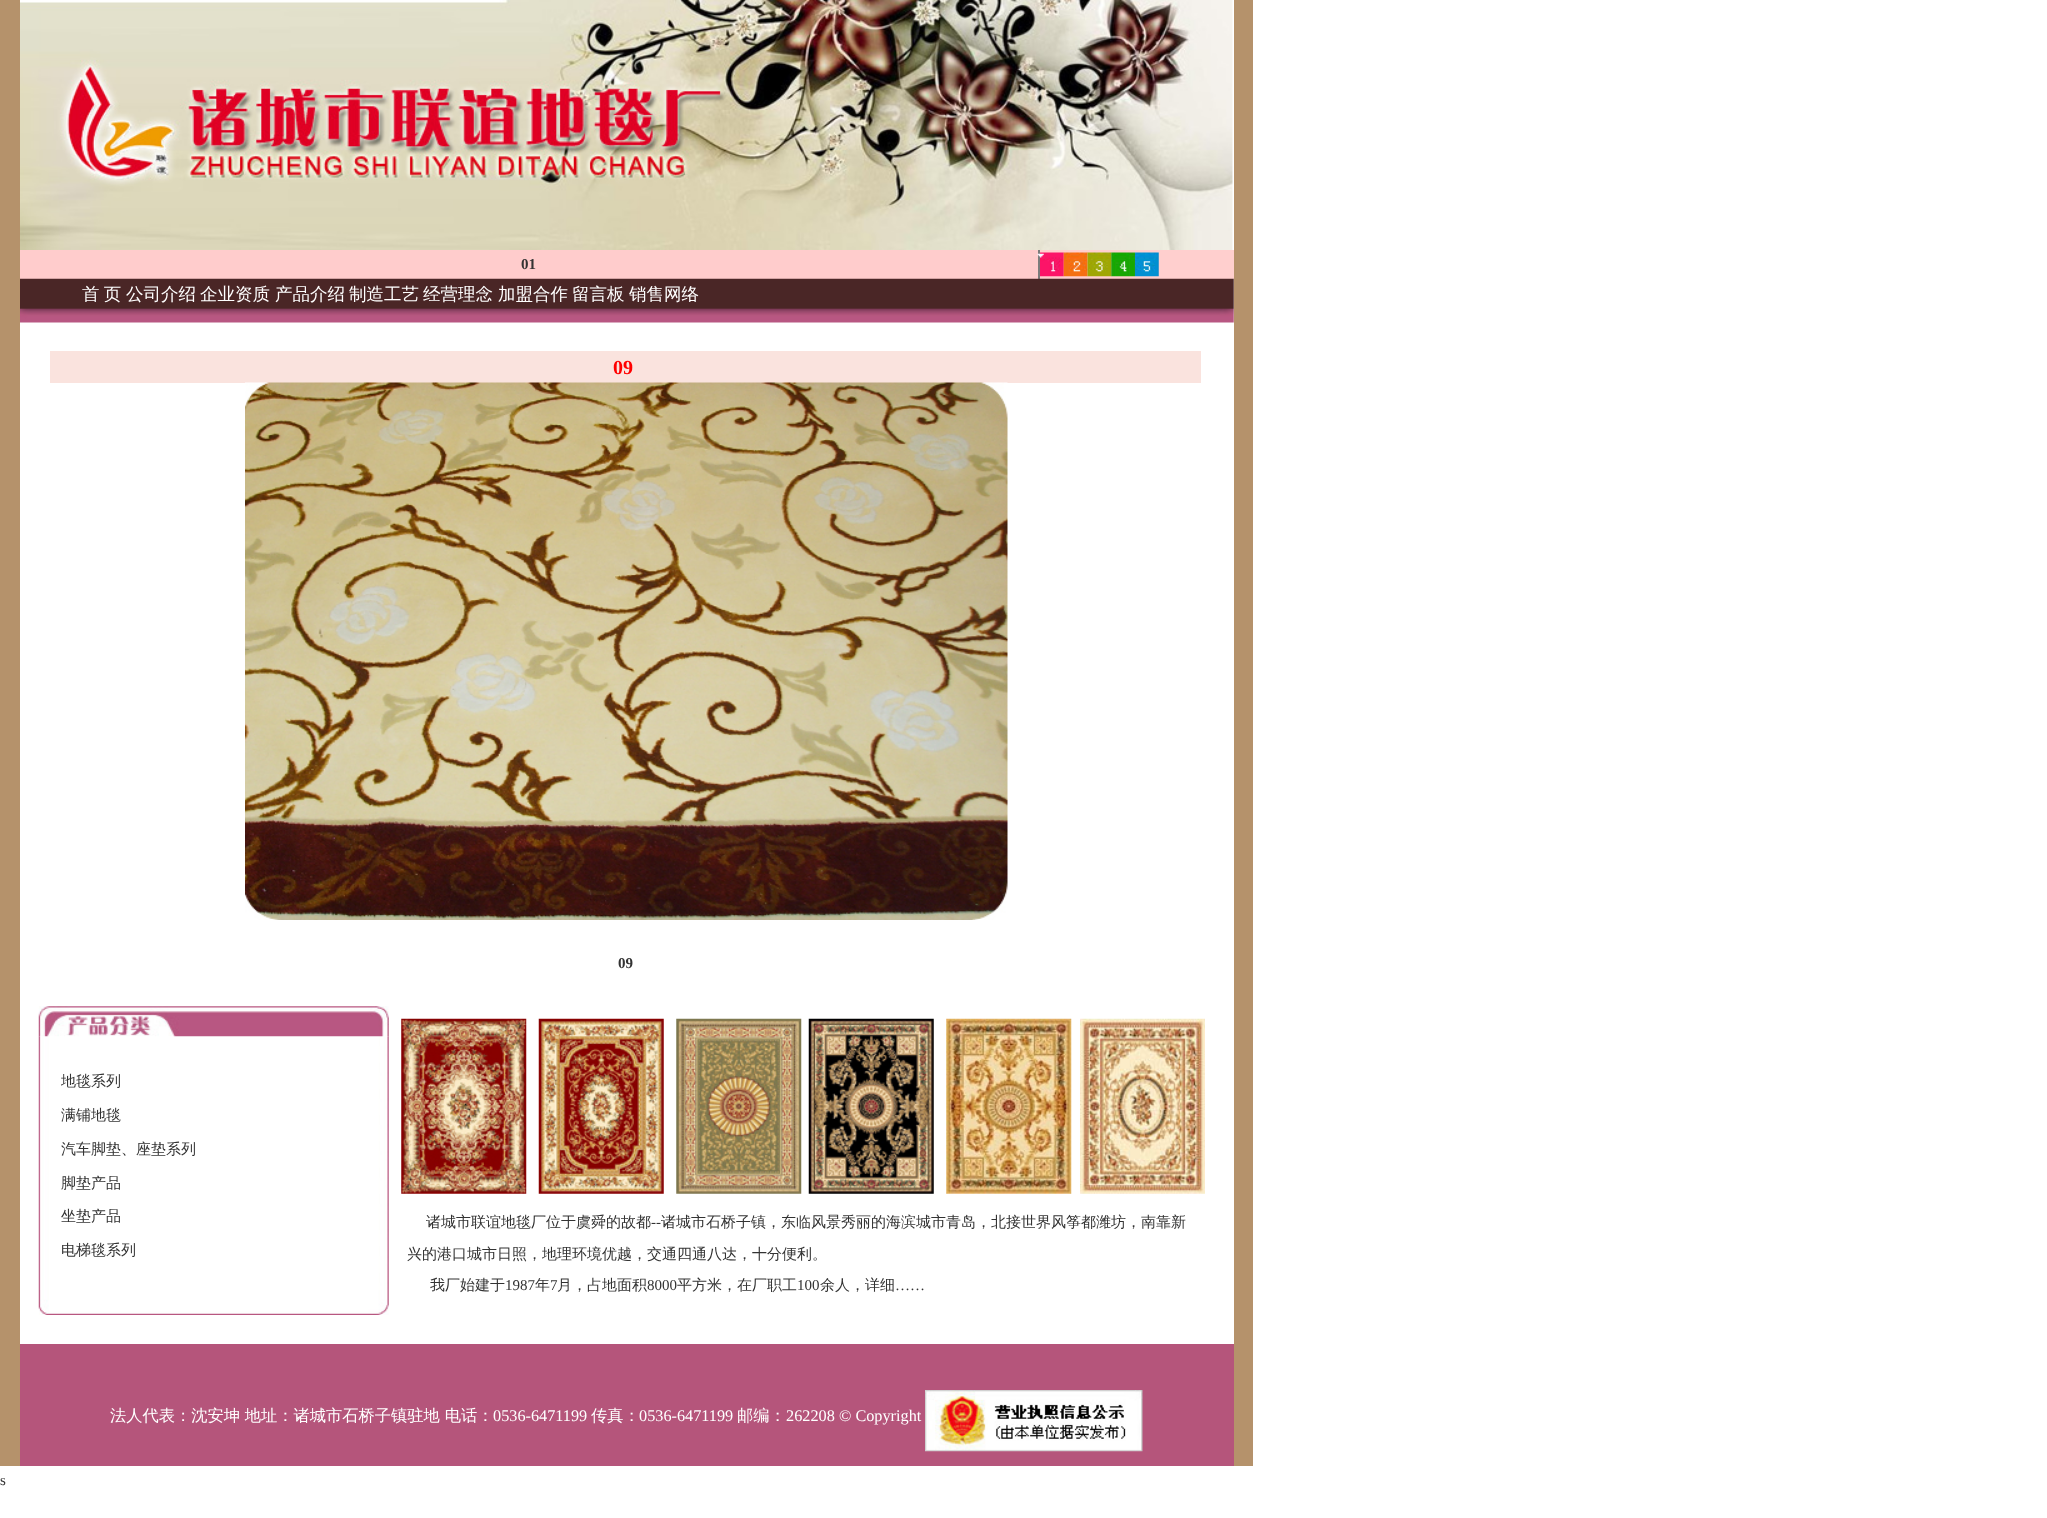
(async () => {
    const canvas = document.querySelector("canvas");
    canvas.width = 2047;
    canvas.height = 1518;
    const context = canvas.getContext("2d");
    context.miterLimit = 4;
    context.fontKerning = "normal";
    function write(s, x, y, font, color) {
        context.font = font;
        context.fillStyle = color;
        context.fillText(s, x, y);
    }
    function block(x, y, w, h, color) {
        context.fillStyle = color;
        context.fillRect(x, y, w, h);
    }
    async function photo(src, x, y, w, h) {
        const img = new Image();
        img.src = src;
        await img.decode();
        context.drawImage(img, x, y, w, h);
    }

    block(0, 0, 2047, 1518, "rgb(255, 255, 255)");
    block(0, 0, 1253, 1466, "rgb(181, 146, 107)");
    block(20, 0, 1214, 1344, "rgb(255, 255, 255)");
    await photo("media/1.png", 20, 0, 1213, 250);
    block(1038, 250, 2, 29, "rgb(124, 124, 124)");
    block(20, 250, 1018, 29, "rgb(255, 204, 204)");
    block(1040, 250, 194, 29, "rgb(255, 207, 206)");
    await photo("media/3.png", 1040, 252, 24, 25);
    await photo("media/2.png", 1037, 253, 7, 5);
    write("01", 521, 269, "bold 15px Liberation Serif", "rgb(51, 51, 51)");
    await photo("media/4.png", 1063, 252, 25, 25);
    await photo("media/5.png", 1087, 252, 25, 25);
    await photo("media/6.png", 1111, 252, 24, 25);
    await photo("media/7.png", 1135, 252, 24, 25);
    await photo("media/8.png", 20, 278, 1214, 45);
    context.wordSpacing = "-1px";
    write("首 页", 82, 300, "500 17.5px WenQuanYi Zen Hei", "rgb(255, 255, 255)");
    context.wordSpacing = "0px";
    write("公司介绍", 126, 300, "500 17.5px WenQuanYi Zen Hei", "rgb(255, 255, 255)");
    write("企业资质", 200, 300, "500 17.5px WenQuanYi Zen Hei", "rgb(255, 255, 255)");
    write("产品介绍", 275, 300, "500 17.5px WenQuanYi Zen Hei", "rgb(255, 255, 255)");
    write("制造工艺", 349, 300, "500 17.5px WenQuanYi Zen Hei", "rgb(255, 255, 255)");
    write("经营理念", 423, 300, "500 17.5px WenQuanYi Zen Hei", "rgb(255, 255, 255)");
    write("加盟合作", 498, 300, "500 17.5px WenQuanYi Zen Hei", "rgb(255, 255, 255)");
    write("留言板", 572, 300, "500 17.5px WenQuanYi Zen Hei", "rgb(255, 255, 255)");
    write("销售网络", 629, 300, "500 17.5px WenQuanYi Zen Hei", "rgb(255, 255, 255)");
    block(50, 351, 1151, 32, "rgb(250, 227, 222)");
    write("09", 613, 374, "bold 20px Liberation Serif", "rgb(255, 0, 0)");
    await photo("media/9.png", 245, 382, 763, 538);
    write("09", 618, 968, "bold 15px Liberation Serif", "rgb(51, 51, 51)");
    await photo("media/11.png", 38, 1036, 351, 254);
    await photo("media/10.png", 38, 1006, 351, 31);
    await photo("media/12.png", 61, 1073, 134, 184);
    await photo("media/13.png", 38, 1290, 351, 25);
    await photo("media/14.png", 401, 1018, 126, 176);
    await photo("media/15.png", 538, 1018, 126, 176);
    await photo("media/16.png", 676, 1018, 126, 176);
    await photo("media/17.png", 808, 1018, 126, 176);
    await photo("media/18.png", 946, 1018, 126, 176);
    await photo("media/19.png", 1080, 1018, 125, 176);
    write("诸城市联谊地毯厂位于虞舜的故都", 426, 1227, "500 15px WenQuanYi Zen Hei", "rgb(51, 51, 51)");
    write("--", 651, 1227, "15px Liberation Serif", "rgb(51, 51, 51)");
    write("诸城市石桥子镇，东临风景秀丽的海滨城市青岛，北接世界风筝都潍坊，南靠新", 661, 1227, "500 15px WenQuanYi Zen Hei", "rgb(51, 51, 51)");
    write("兴的港口城市日照，地理环境优越，交通四通八达，十分便利。", 407, 1259, "500 15px WenQuanYi Zen Hei", "rgb(51, 51, 51)");
    write("我厂始建于", 430, 1290, "500 15px WenQuanYi Zen Hei", "rgb(51, 51, 51)");
    write("1987", 505, 1290, "15px Liberation Serif", "rgb(51, 51, 51)");
    write("年", 535, 1290, "500 15px WenQuanYi Zen Hei", "rgb(51, 51, 51)");
    write("7", 550, 1290, "15px Liberation Serif", "rgb(51, 51, 51)");
    write("月，占地面积", 557, 1290, "500 15px WenQuanYi Zen Hei", "rgb(51, 51, 51)");
    write("8000", 647, 1290, "15px Liberation Serif", "rgb(51, 51, 51)");
    write("平方米，在厂职工", 677, 1290, "500 15px WenQuanYi Zen Hei", "rgb(51, 51, 51)");
    write("100", 797, 1290, "15px Liberation Serif", "rgb(51, 51, 51)");
    write("余人，详细", 820, 1290, "500 15px WenQuanYi Zen Hei", "rgb(51, 51, 51)");
    write("……", 895, 1290, "15px Liberation Serif", "rgb(51, 51, 51)");
    block(20, 1344, 1214, 122, "rgb(181, 85, 123)");
    write("法人代表：沈安坤 地址：诸城市石桥子镇驻地 电话：", 110, 1421, "500 16.25px WenQuanYi Zen Hei", "rgb(255, 255, 255)");
    write("0536-6471199", 493, 1421, "16.25px Liberation Serif", "rgb(255, 255, 255)");
    write("传真：", 591, 1421, "500 16.25px WenQuanYi Zen Hei", "rgb(255, 255, 255)");
    write("0536-6471199", 639, 1421, "16.25px Liberation Serif", "rgb(255, 255, 255)");
    write("邮编：", 737, 1421, "500 16.25px WenQuanYi Zen Hei", "rgb(255, 255, 255)");
    write("262208", 786, 1421, "16.25px Liberation Serif", "rgb(255, 255, 255)");
    write("© Copyright", 839, 1421, "16.25px Liberation Serif", "rgb(255, 255, 255)");
    await photo("media/20.png", 925, 1390, 218, 62);
    write("s", 0, 1485, "15px Liberation Serif", "rgb(51, 51, 51)");
})();
